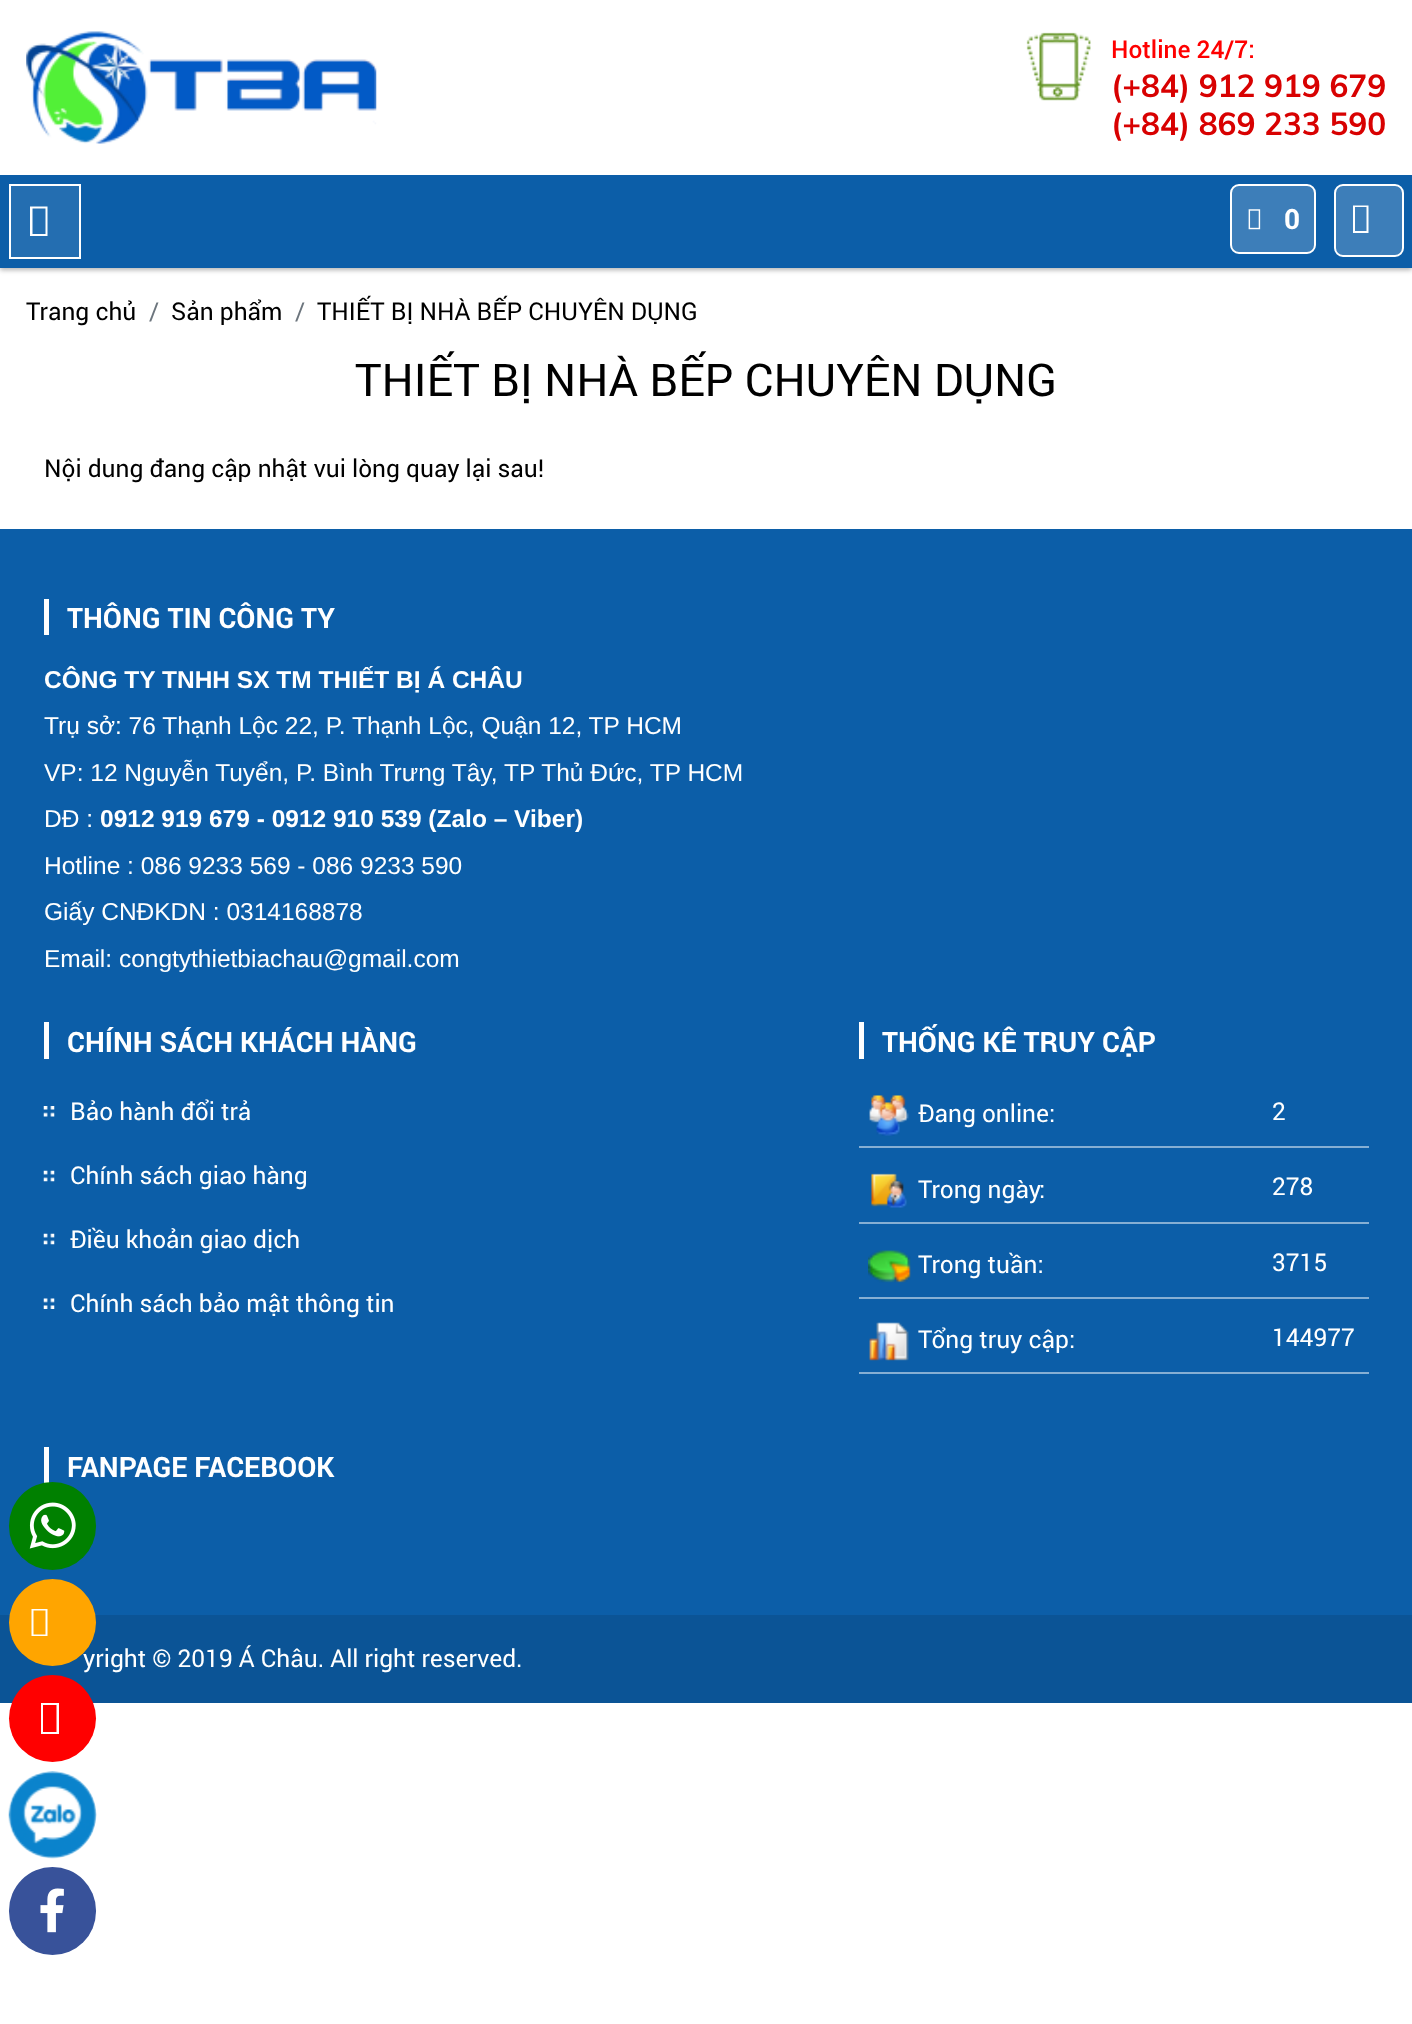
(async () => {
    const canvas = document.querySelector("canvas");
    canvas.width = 1412;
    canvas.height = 2024;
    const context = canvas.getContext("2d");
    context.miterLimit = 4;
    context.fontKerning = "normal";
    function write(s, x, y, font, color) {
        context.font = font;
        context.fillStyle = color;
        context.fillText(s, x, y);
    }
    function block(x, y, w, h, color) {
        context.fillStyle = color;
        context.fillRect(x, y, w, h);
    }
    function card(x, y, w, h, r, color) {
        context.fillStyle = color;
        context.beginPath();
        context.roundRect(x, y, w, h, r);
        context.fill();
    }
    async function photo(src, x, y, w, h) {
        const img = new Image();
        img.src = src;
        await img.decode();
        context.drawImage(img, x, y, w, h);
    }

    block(0, 0, 1412, 2024, "rgb(255, 255, 255)");
    context.fillStyle = "rgba(0, 0, 0, 0.3)";
    context.filter = "blur(2.5px)";
    context.beginPath();
    context.rect(0, 177, 1412, 93);
    context.fill();
    context.filter = "none";
    block(0, 172, 1412, 3, "rgb(255, 255, 255)");
    await photo("media/1.png", 26, 31, 351, 113);
    await photo("media/2.png", 1026, 32, 65, 69);
    write("Hotline 24/7:", 1111, 58, "500 24.5px Roboto", "rgb(255, 0, 0)");
    write("(+84) 912 919 679", 1111, 97, "bold 31.5px Muli", "rgb(216, 1, 1)");
    write("(+84) 869 233 590", 1111, 135, "bold 31.5px Muli", "rgb(216, 1, 1)");
    block(0, 175, 1412, 93, "rgb(12, 94, 168)");
    context.fillStyle = "rgb(36, 110, 177)";
    context.beginPath();
    context.rect(10, 185, 70, 73);
    context.fill();
    context.strokeStyle = "rgb(255, 255, 255)";
    context.lineWidth = 2;
    context.stroke();
    context.fillStyle = "rgb(255, 255, 255)";
    context.beginPath();
    context.moveTo(30, 236);
    context.lineTo(30, 206.5);
    context.lineTo(47.5, 206.5);
    context.lineTo(47.5, 236);
    context.closePath();
    context.moveTo(32.5, 234);
    context.lineTo(45.5, 234);
    context.lineTo(45.5, 208.5);
    context.lineTo(32.5, 208.5);
    context.closePath();
    context.fill();
    context.fillStyle = "rgb(61, 126, 185)";
    context.beginPath();
    context.roundRect(1231, 185, 84, 68, 8);
    context.fill();
    context.stroke();
    await photo("media/3.png", 1248, 209, 13, 21);
    write("0", 1284, 229, "bold 28px Roboto", "rgb(255, 255, 255)");
    context.fillStyle = "rgb(61, 126, 185)";
    context.beginPath();
    context.roundRect(1335, 185, 68, 71, 8);
    context.fill();
    context.stroke();
    context.fillStyle = "rgb(255, 255, 255)";
    context.beginPath();
    context.moveTo(1353, 233);
    context.lineTo(1353, 205.5);
    context.lineTo(1368.5, 205.5);
    context.lineTo(1368.5, 233);
    context.closePath();
    context.moveTo(1355, 231);
    context.lineTo(1366.5, 231);
    context.lineTo(1366.5, 207);
    context.lineTo(1355, 207);
    context.closePath();
    context.fill();
    write("Trang chủ", 26, 320, "24.5px Roboto", "rgb(0, 0, 0)");
    write("/", 149, 320, "24.5px Roboto", "rgb(108, 117, 125)");
    write("Sản phẩm", 171, 320, "24.5px Roboto", "rgb(0, 0, 0)");
    write("/", 295, 320, "24.5px Roboto", "rgb(108, 117, 125)");
    write("THIẾT BỊ NHÀ BẾP CHUYÊN DỤNG", 317, 320, "24.5px Roboto", "rgb(0, 0, 0)");
    write("THIẾT BỊ NHÀ BẾP CHUYÊN DỤNG", 355, 396, "45.2px Roboto", "rgb(0, 0, 0)");
    write("Nội dung đang cập nhật vui lòng quay lại sau!", 44, 477, "24.5px Roboto", "rgb(0, 0, 0)");
    block(0, 529, 1412, 1086, "rgb(12, 94, 168)");
    block(44, 599, 5, 36, "rgb(255, 255, 255)");
    write("THÔNG TIN CÔNG TY", 67, 628, "bold 28px Roboto", "rgb(255, 255, 255)");
    write("CÔNG TY TNHH SX TM THIẾT BỊ Á CHÂU", 44, 688, "bold 24.5px Liberation Sans", "rgb(255, 255, 255)");
    write("Trụ sở: 76 Thạnh Lộc 22, P. Thạnh Lộc, Quận 12, TP HCM", 44, 734, "24.5px Liberation Sans", "rgb(255, 255, 255)");
    write("VP: 12 Nguyễn Tuyển, P. Bình Trưng Tây, TP Thủ Đức, TP HCM", 44, 781, "24.5px Liberation Sans", "rgb(255, 255, 255)");
    write("DĐ :", 44, 827, "24.5px Liberation Sans", "rgb(255, 255, 255)");
    write("0912 919 679 - 0912 910 539 (Zalo – Viber)", 100, 827, "bold 24.5px Liberation Sans", "rgb(255, 255, 255)");
    write("Hotline : 086 9233 569 - 086 9233 590", 44, 874, "24.5px Liberation Sans", "rgb(255, 255, 255)");
    write("Giấy CNĐKDN : 0314168878", 44, 920, "24.5px Liberation Sans", "rgb(255, 255, 255)");
    write("Email: congtythietbiachau@gmail.com", 44, 967, "24.5px Liberation Sans", "rgb(255, 255, 255)");
    block(44, 1022, 5, 37, "rgb(255, 255, 255)");
    write("CHÍNH SÁCH KHÁCH HÀNG", 67, 1052, "bold 28px Roboto", "rgb(255, 255, 255)");
    await photo("media/4.png", 43, 1106, 12, 11);
    write("Bảo hành đổi trả", 70, 1120, "24.5px Roboto", "rgb(255, 255, 255)");
    await photo("media/5.png", 43, 1170, 12, 12);
    write("Chính sách giao hàng", 70, 1184, "24.5px Roboto", "rgb(255, 255, 255)");
    await photo("media/5.png", 43, 1233, 12, 12);
    write("Điều khoản giao dịch", 70, 1248, "24.5px Roboto", "rgb(255, 255, 255)");
    await photo("media/6.png", 43, 1298, 12, 11);
    write("Chính sách bảo mật thông tin", 70, 1312, "24.5px Roboto", "rgb(255, 255, 255)");
    block(859, 1022, 5, 37, "rgb(255, 255, 255)");
    write("THỐNG KÊ TRUY CẬP", 882, 1052, "bold 28px Roboto", "rgb(255, 255, 255)");
    block(859, 1146, 510, 2, "rgb(134, 175, 212)");
    await photo("media/7.png", 869, 1095, 40, 41);
    write("Đang online:", 918, 1122, "24.5px Roboto", "rgb(255, 255, 255)");
    write("2", 1272, 1120, "24.5px Roboto", "rgb(255, 255, 255)");
    block(859, 1222, 510, 2, "rgb(134, 175, 212)");
    await photo("media/8.png", 871, 1173, 36, 35);
    write("Trong ngày:", 918, 1198, "24.5px Roboto", "rgb(255, 255, 255)");
    write("278", 1272, 1195, "24.5px Roboto", "rgb(255, 255, 255)");
    block(859, 1297, 510, 2, "rgb(134, 175, 212)");
    await photo("media/9.png", 868, 1250, 43, 33);
    write("Trong tuần:", 918, 1273, "24.5px Roboto", "rgb(255, 255, 255)");
    write("3715", 1272, 1271, "24.5px Roboto", "rgb(255, 255, 255)");
    block(859, 1372, 510, 2, "rgb(134, 175, 212)");
    await photo("media/10.png", 869, 1322, 40, 39);
    write("Tổng truy cập:", 918, 1348, "24.5px Roboto", "rgb(255, 255, 255)");
    write("144977", 1272, 1346, "24.5px Roboto", "rgb(255, 255, 255)");
    block(44, 1447, 5, 37, "rgb(255, 255, 255)");
    write("FANPAGE FACEBOOK", 67, 1477, "bold 28px Roboto", "rgb(255, 255, 255)");
    card(9, 1482, 87, 88, 43.5, "rgb(0, 128, 0)");
    await photo("media/11.png", 29, 1502, 47, 47);
    block(0, 1615, 1412, 88, "rgb(11, 84, 150)");
    write("yright © 2019 Á Châu. All right reserved.", 83, 1667, "24.5px Roboto", "rgb(255, 255, 255)");
    context.fillStyle = "rgb(255, 165, 0)";
    context.beginPath();
    context.arc(52.5, 1622.5, 43.5, 0, Math.PI * 2);
    context.fill();
    context.fillStyle = "rgb(255, 255, 255)";
    context.beginPath();
    context.moveTo(31.5, 1636);
    context.lineTo(31.5, 1609);
    context.lineTo(47.5, 1609);
    context.lineTo(47.5, 1636);
    context.closePath();
    context.moveTo(33.5, 1634.5);
    context.lineTo(45.5, 1634.5);
    context.lineTo(45.5, 1610.5);
    context.lineTo(33.5, 1610.5);
    context.closePath();
    context.fill();
    context.fillStyle = "rgb(255, 0, 0)";
    context.beginPath();
    context.arc(52.5, 1718.5, 43.5, 0, Math.PI * 2);
    context.fill();
    context.fillStyle = "rgb(255, 255, 255)";
    context.beginPath();
    context.moveTo(41, 1734);
    context.lineTo(41, 1703);
    context.lineTo(59, 1703);
    context.lineTo(59, 1734);
    context.closePath();
    context.moveTo(43, 1732);
    context.lineTo(56.5, 1732);
    context.lineTo(56.5, 1705);
    context.lineTo(43, 1705);
    context.closePath();
    context.fill();
    await photo("media/12.png", 8, 1771, 89, 88);
    card(9, 1867, 87, 88, 43.5, "rgb(56, 82, 154)");
    await photo("media/13.png", 40, 1888, 24, 45);
})();
